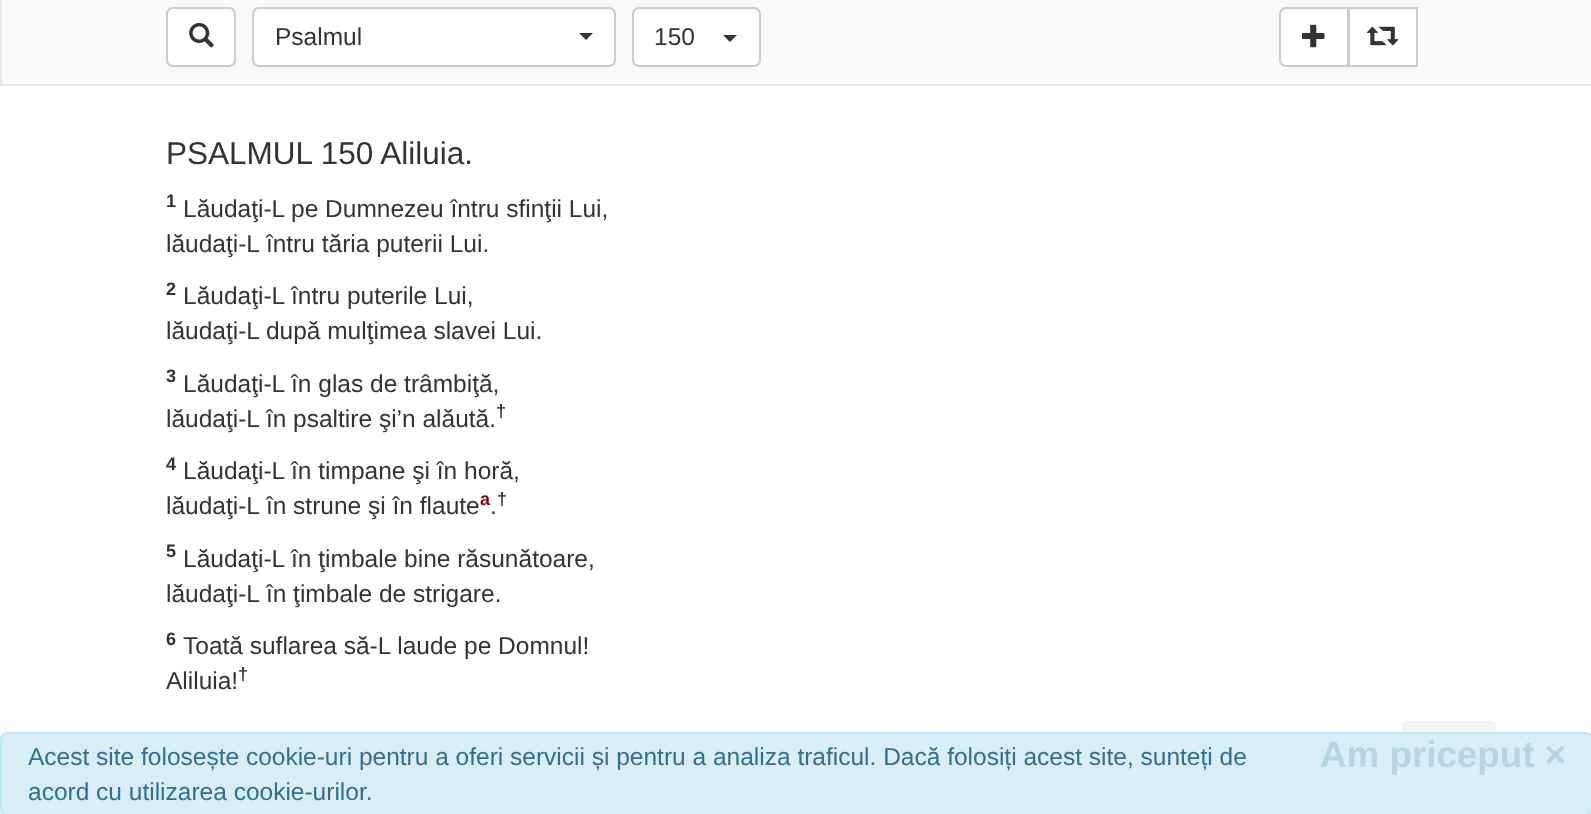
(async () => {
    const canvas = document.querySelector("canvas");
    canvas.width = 1591;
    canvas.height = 814;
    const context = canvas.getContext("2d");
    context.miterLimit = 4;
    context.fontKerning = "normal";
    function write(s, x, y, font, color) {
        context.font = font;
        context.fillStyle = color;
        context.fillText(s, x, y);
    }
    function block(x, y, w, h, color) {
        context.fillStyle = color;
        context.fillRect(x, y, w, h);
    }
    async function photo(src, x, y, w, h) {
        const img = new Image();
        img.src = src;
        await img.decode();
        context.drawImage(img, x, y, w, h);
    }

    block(0, 0, 1591, 814, "rgb(255, 255, 255)");
    context.fillStyle = "rgb(248, 248, 248)";
    context.beginPath();
    context.rect(1, -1, 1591, 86);
    context.fill();
    context.strokeStyle = "rgb(231, 231, 231)";
    context.lineWidth = 2;
    context.stroke();
    context.fillStyle = "rgb(255, 255, 255)";
    context.beginPath();
    context.roundRect(167, 8, 68, 58, 6);
    context.fill();
    context.strokeStyle = "rgb(204, 204, 204)";
    context.stroke();
    await photo("media/1.png", 189, 22, 25, 26);
    context.beginPath();
    context.roundRect(253, 8, 362, 58, 6);
    context.fill();
    context.stroke();
    write("Psalmul", 275, 45, "24.5px Liberation Sans", "rgb(51, 51, 51)");
    context.beginPath();
    context.moveTo(579, 33);
    context.lineTo(593, 33);
    context.lineTo(586, 40);
    context.closePath();
    context.fill();
    context.fillStyle = "rgb(255, 255, 255)";
    context.beginPath();
    context.roundRect(633, 8, 127, 58, 6);
    context.fill();
    context.stroke();
    write("150", 654, 45, "24.5px Liberation Sans", "rgb(51, 51, 51)");
    context.beginPath();
    context.moveTo(723, 35);
    context.lineTo(737, 35);
    context.lineTo(730, 42);
    context.closePath();
    context.fill();
    context.fillStyle = "rgb(255, 255, 255)";
    context.beginPath();
    context.roundRect(1280, 8, 68, 58, [6, 0, 0, 6]);
    context.fill();
    context.stroke();
    await photo("media/2.png", 1302, 24, 23, 24);
    context.beginPath();
    context.rect(1349, 8, 68, 58);
    context.fill();
    context.stroke();
    await photo("media/3.png", 1366, 26, 33, 20);
    write("PSALMUL 150 Aliluia.", 166, 164, "31.5px Liberation Sans", "rgb(51, 51, 51)");
    write("1", 166, 207, "bold 18px Liberation Sans", "rgb(51, 51, 51)");
    write("Lăudaţi-L pe Dumnezeu întru sfinţii Lui,", 183, 217, "24.5px Liberation Sans", "rgb(51, 51, 51)");
    write("lăudaţi-L întru tăria puterii Lui.", 166, 252, "24.5px Liberation Sans", "rgb(51, 51, 51)");
    write("2", 166, 295, "bold 18px Liberation Sans", "rgb(51, 51, 51)");
    write("Lăudaţi-L întru puterile Lui,", 183, 304, "24.5px Liberation Sans", "rgb(51, 51, 51)");
    write("lăudaţi-L după mulţimea slavei Lui.", 166, 339, "24.5px Liberation Sans", "rgb(51, 51, 51)");
    write("3", 166, 382, "bold 18px Liberation Sans", "rgb(51, 51, 51)");
    write("Lăudaţi-L în glas de trâmbiţă,", 183, 392, "24.5px Liberation Sans", "rgb(51, 51, 51)");
    write("lăudaţi-L în psaltire şi’n alăută.", 166, 427, "24.5px Liberation Sans", "rgb(51, 51, 51)");
    write("†", 496, 417, "bold 18px Liberation Sans", "rgb(51, 51, 51)");
    write("4", 166, 470, "bold 18px Liberation Sans", "rgb(51, 51, 51)");
    write("Lăudaţi-L în timpane şi în horă,", 183, 479, "24.5px Liberation Sans", "rgb(51, 51, 51)");
    write("lăudaţi-L în strune şi în flaute", 166, 514, "24.5px Liberation Sans", "rgb(51, 51, 51)");
    write("a", 480, 505, "bold 18px Liberation Sans", "rgb(139, 0, 0)");
    write("†", 497, 505, "bold 18px Liberation Sans", "rgb(51, 51, 51)");
    write(".", 490, 514, "24.5px Liberation Sans", "rgb(51, 51, 51)");
    write("5", 166, 557, "bold 18px Liberation Sans", "rgb(51, 51, 51)");
    write("Lăudaţi-L în ţimbale bine răsunătoare,", 183, 567, "24.5px Liberation Sans", "rgb(51, 51, 51)");
    write("lăudaţi-L în ţimbale de strigare.", 166, 602, "24.5px Liberation Sans", "rgb(51, 51, 51)");
    write("6", 166, 645, "bold 18px Liberation Sans", "rgb(51, 51, 51)");
    write("Toată suflarea să-L laude pe Domnul!", 183, 654, "24.5px Liberation Sans", "rgb(51, 51, 51)");
    write("Aliluia!", 166, 689, "24.5px Liberation Sans", "rgb(51, 51, 51)");
    write("†", 238, 680, "bold 18px Liberation Sans", "rgb(51, 51, 51)");
    context.fillStyle = "rgb(242, 243, 242)";
    context.beginPath();
    context.moveTo(1407, 721);
    context.lineTo(1491, 721);
    context.bezierCurveTo(1494, 721, 1496, 723, 1496, 726);
    context.lineTo(1496, 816);
    context.lineTo(1402, 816);
    context.lineTo(1402, 726);
    context.bezierCurveTo(1402, 723, 1404, 721, 1407, 721);
    context.closePath();
    context.fill();
    context.fillStyle = "rgb(217, 237, 247)";
    context.beginPath();
    context.roundRect(1, 733, 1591, 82, 6);
    context.fill();
    context.strokeStyle = "rgb(188, 232, 241)";
    context.stroke();
    write("Acest site folosește cookie-uri pentru a oferi servicii și pentru a analiza traficul. Dacă folosiți acest site, sunteți de", 28, 765, "24.5px Liberation Sans", "rgb(49, 112, 143)");
    write("Am priceput ×", 1320, 767, "bold 36.75px Liberation Sans", "rgb(183, 212, 226)");
    write("acord cu utilizarea cookie-urilor.", 28, 800, "24.5px Liberation Sans", "rgb(49, 112, 143)");
})();
